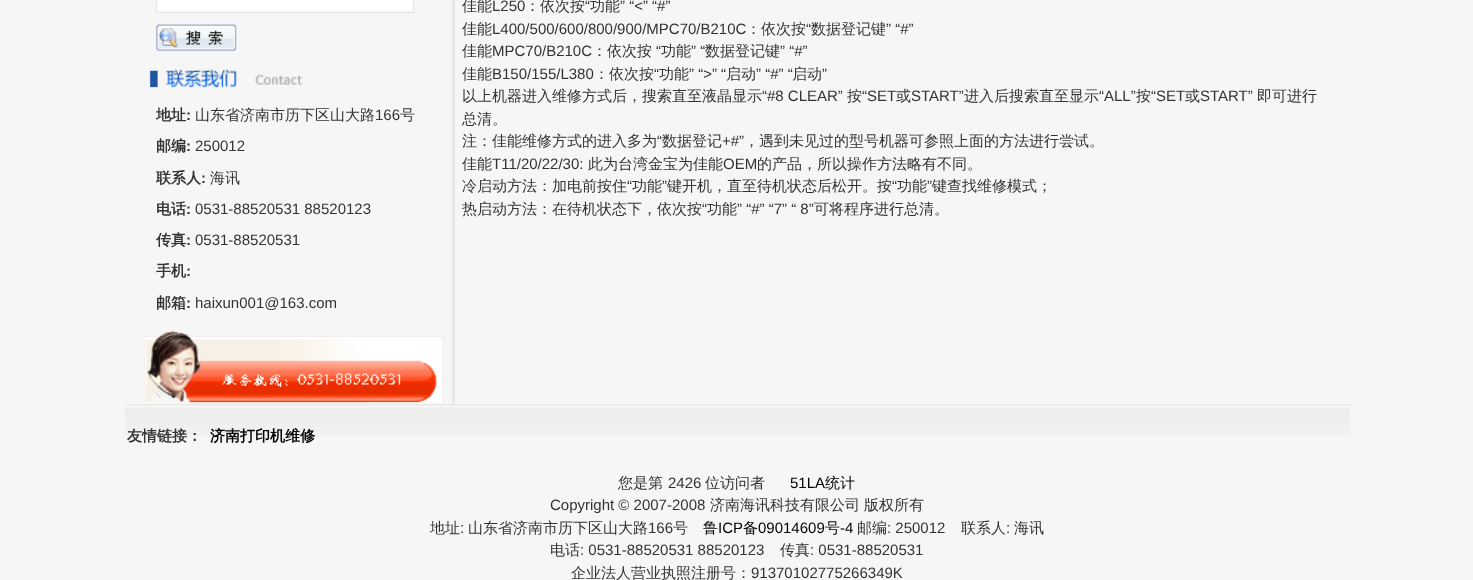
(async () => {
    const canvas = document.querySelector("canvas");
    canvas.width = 1473;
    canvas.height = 580;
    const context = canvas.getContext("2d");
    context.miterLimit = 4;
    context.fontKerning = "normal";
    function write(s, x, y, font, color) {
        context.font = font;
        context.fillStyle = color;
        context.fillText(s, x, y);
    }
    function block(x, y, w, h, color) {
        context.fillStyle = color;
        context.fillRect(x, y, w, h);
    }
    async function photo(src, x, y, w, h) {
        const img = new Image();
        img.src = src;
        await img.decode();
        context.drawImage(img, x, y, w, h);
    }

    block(0, 0, 1473, 580, "rgb(246, 246, 246)");
    block(452, 0, 3, 405, "rgb(233, 233, 233)");
    block(157, 0, 256, 11, "rgb(255, 255, 255)");
    context.strokeStyle = "rgb(230, 230, 230)";
    context.strokeRect(156.5, -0.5, 257, 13);
    await photo("media/1.png", 156, 24, 81, 27);
    await photo("media/2.png", 149, 69, 154, 19);
    write("地址", 156, 120, "bold 15px WenQuanYi Zen Hei", "rgb(51, 51, 51)");
    write(":", 186, 120, "bold 15px Liberation Sans", "rgb(51, 51, 51)");
    write("山东省济南市历下区山大路", 195, 120, "500 15px WenQuanYi Zen Hei", "rgb(51, 51, 51)");
    write("166", 375, 120, "15px Liberation Sans", "rgb(51, 51, 51)");
    write("号", 400, 120, "500 15px WenQuanYi Zen Hei", "rgb(51, 51, 51)");
    write("邮编", 156, 151, "bold 15px WenQuanYi Zen Hei", "rgb(51, 51, 51)");
    write(":", 186, 151, "bold 15px Liberation Sans", "rgb(51, 51, 51)");
    write("250012", 195, 151, "15px Liberation Sans", "rgb(51, 51, 51)");
    write("联系人", 156, 183, "bold 15px WenQuanYi Zen Hei", "rgb(51, 51, 51)");
    write(":", 201, 183, "bold 15px Liberation Sans", "rgb(51, 51, 51)");
    write("海讯", 210, 183, "500 15px WenQuanYi Zen Hei", "rgb(51, 51, 51)");
    write("电话", 156, 214, "bold 15px WenQuanYi Zen Hei", "rgb(51, 51, 51)");
    write(":", 186, 214, "bold 15px Liberation Sans", "rgb(51, 51, 51)");
    write("0531-88520531 88520123", 195, 214, "15px Liberation Sans", "rgb(51, 51, 51)");
    write("传真", 156, 245, "bold 15px WenQuanYi Zen Hei", "rgb(51, 51, 51)");
    write(":", 186, 245, "bold 15px Liberation Sans", "rgb(51, 51, 51)");
    write("0531-88520531", 195, 245, "15px Liberation Sans", "rgb(51, 51, 51)");
    write("手机", 156, 276, "bold 15px WenQuanYi Zen Hei", "rgb(51, 51, 51)");
    write(":", 186, 276, "bold 15px Liberation Sans", "rgb(51, 51, 51)");
    write("邮箱", 156, 308, "bold 15px WenQuanYi Zen Hei", "rgb(51, 51, 51)");
    write(":", 186, 308, "bold 15px Liberation Sans", "rgb(51, 51, 51)");
    write("haixun001@163.com", 195, 308, "15px Liberation Sans", "rgb(51, 51, 51)");
    await photo("media/3.png", 144, 330, 300, 74);
    write("佳能", 462, 11, "500 15px WenQuanYi Zen Hei", "rgb(51, 51, 51)");
    write("L250", 492, 11, "15px Liberation Sans", "rgb(51, 51, 51)");
    write("：依次按", 525, 11, "500 15px WenQuanYi Zen Hei", "rgb(51, 51, 51)");
    write("“", 585, 11, "15px Liberation Sans", "rgb(51, 51, 51)");
    write("功能", 590, 11, "500 15px WenQuanYi Zen Hei", "rgb(51, 51, 51)");
    write("” “<” “#”", 620, 11, "15px Liberation Sans", "rgb(51, 51, 51)");
    write("佳能", 462, 34, "500 15px WenQuanYi Zen Hei", "rgb(51, 51, 51)");
    write("L400/500/600/800/900/MPC70/B210C", 492, 34, "15px Liberation Sans", "rgb(51, 51, 51)");
    write("：依次按", 746, 34, "500 15px WenQuanYi Zen Hei", "rgb(51, 51, 51)");
    write("“", 806, 34, "15px Liberation Sans", "rgb(51, 51, 51)");
    write("数据登记键", 811, 34, "500 15px WenQuanYi Zen Hei", "rgb(51, 51, 51)");
    write("” “#”", 886, 34, "15px Liberation Sans", "rgb(51, 51, 51)");
    write("佳能", 462, 56, "500 15px WenQuanYi Zen Hei", "rgb(51, 51, 51)");
    write("MPC70/B210C", 492, 56, "15px Liberation Sans", "rgb(51, 51, 51)");
    write("：依次按", 592, 56, "500 15px WenQuanYi Zen Hei", "rgb(51, 51, 51)");
    write("“", 656, 56, "15px Liberation Sans", "rgb(51, 51, 51)");
    write("功能", 661, 56, "500 15px WenQuanYi Zen Hei", "rgb(51, 51, 51)");
    write("” “", 691, 56, "15px Liberation Sans", "rgb(51, 51, 51)");
    write("数据登记键", 705, 56, "500 15px WenQuanYi Zen Hei", "rgb(51, 51, 51)");
    write("” “#”", 780, 56, "15px Liberation Sans", "rgb(51, 51, 51)");
    write("佳能", 462, 79, "500 15px WenQuanYi Zen Hei", "rgb(51, 51, 51)");
    write("B150/155/L380", 492, 79, "15px Liberation Sans", "rgb(51, 51, 51)");
    write("：依次按", 594, 79, "500 15px WenQuanYi Zen Hei", "rgb(51, 51, 51)");
    write("“", 654, 79, "15px Liberation Sans", "rgb(51, 51, 51)");
    write("功能", 659, 79, "500 15px WenQuanYi Zen Hei", "rgb(51, 51, 51)");
    write("” “>” “", 689, 79, "15px Liberation Sans", "rgb(51, 51, 51)");
    write("启动", 726, 79, "500 15px WenQuanYi Zen Hei", "rgb(51, 51, 51)");
    write("” “#” “", 756, 79, "15px Liberation Sans", "rgb(51, 51, 51)");
    write("启动", 792, 79, "500 15px WenQuanYi Zen Hei", "rgb(51, 51, 51)");
    write("”", 822, 79, "15px Liberation Sans", "rgb(51, 51, 51)");
    write("以上机器进入维修方式后，搜索直至液晶显示", 462, 101, "500 15px WenQuanYi Zen Hei", "rgb(51, 51, 51)");
    write("“#8 CLEAR”", 762, 101, "15px Liberation Sans", "rgb(51, 51, 51)");
    write("按", 847, 101, "500 15px WenQuanYi Zen Hei", "rgb(51, 51, 51)");
    write("“SET", 862, 101, "15px Liberation Sans", "rgb(51, 51, 51)");
    write("或", 896, 101, "500 15px WenQuanYi Zen Hei", "rgb(51, 51, 51)");
    write("START”", 911, 101, "15px Liberation Sans", "rgb(51, 51, 51)");
    write("进入后搜索直至显示", 964, 101, "500 15px WenQuanYi Zen Hei", "rgb(51, 51, 51)");
    write("“ALL”", 1099, 101, "15px Liberation Sans", "rgb(51, 51, 51)");
    write("按", 1136, 101, "500 15px WenQuanYi Zen Hei", "rgb(51, 51, 51)");
    write("“SET", 1151, 101, "15px Liberation Sans", "rgb(51, 51, 51)");
    write("或", 1185, 101, "500 15px WenQuanYi Zen Hei", "rgb(51, 51, 51)");
    write("START”", 1200, 101, "15px Liberation Sans", "rgb(51, 51, 51)");
    write("即可进行", 1257, 101, "500 15px WenQuanYi Zen Hei", "rgb(51, 51, 51)");
    write("总清。", 462, 124, "500 15px WenQuanYi Zen Hei", "rgb(51, 51, 51)");
    write("注：佳能维修方式的进入多为", 462, 146, "500 15px WenQuanYi Zen Hei", "rgb(51, 51, 51)");
    write("“", 657, 146, "15px Liberation Sans", "rgb(51, 51, 51)");
    write("数据登记", 662, 146, "500 15px WenQuanYi Zen Hei", "rgb(51, 51, 51)");
    write("+#”", 722, 146, "15px Liberation Sans", "rgb(51, 51, 51)");
    write("，遇到未见过的型号机器可参照上面的方法进行尝试。", 744, 146, "500 15px WenQuanYi Zen Hei", "rgb(51, 51, 51)");
    write("佳能", 462, 169, "500 15px WenQuanYi Zen Hei", "rgb(51, 51, 51)");
    write("T11/20/22/30:", 492, 169, "15px Liberation Sans", "rgb(51, 51, 51)");
    write("此为台湾金宝为佳能", 588, 169, "500 15px WenQuanYi Zen Hei", "rgb(51, 51, 51)");
    write("OEM", 723, 169, "15px Liberation Sans", "rgb(51, 51, 51)");
    write("的产品，所以操作方法略有不同。", 757, 169, "500 15px WenQuanYi Zen Hei", "rgb(51, 51, 51)");
    write("冷启动方法：加电前按住", 462, 191, "500 15px WenQuanYi Zen Hei", "rgb(51, 51, 51)");
    write("“", 627, 191, "15px Liberation Sans", "rgb(51, 51, 51)");
    write("功能", 632, 191, "500 15px WenQuanYi Zen Hei", "rgb(51, 51, 51)");
    write("”", 662, 191, "15px Liberation Sans", "rgb(51, 51, 51)");
    write("键开机，直至待机状态后松开。按", 667, 191, "500 15px WenQuanYi Zen Hei", "rgb(51, 51, 51)");
    write("“", 892, 191, "15px Liberation Sans", "rgb(51, 51, 51)");
    write("功能", 897, 191, "500 15px WenQuanYi Zen Hei", "rgb(51, 51, 51)");
    write("”", 927, 191, "15px Liberation Sans", "rgb(51, 51, 51)");
    write("键查找维修模式；", 932, 191, "500 15px WenQuanYi Zen Hei", "rgb(51, 51, 51)");
    write("热启动方法：在待机状态下，依次按", 462, 214, "500 15px WenQuanYi Zen Hei", "rgb(51, 51, 51)");
    write("“", 702, 214, "15px Liberation Sans", "rgb(51, 51, 51)");
    write("功能", 707, 214, "500 15px WenQuanYi Zen Hei", "rgb(51, 51, 51)");
    write("” “#” “7” “ 8”", 737, 214, "15px Liberation Sans", "rgb(51, 51, 51)");
    write("可将程序进行总清。", 814, 214, "500 15px WenQuanYi Zen Hei", "rgb(51, 51, 51)");
    await photo("media/4.png", 125, 404, 1225, 32);
    write("友情链接：", 127, 441, "bold 15px WenQuanYi Zen Hei", "rgb(51, 51, 51)");
    write("济南打印机维修", 210, 441, "bold 15px WenQuanYi Zen Hei", "rgb(0, 0, 0)");
    write("您是第", 618, 488, "500 15px WenQuanYi Zen Hei", "rgb(51, 51, 51)");
    write("2426", 668, 488, "15px Liberation Sans", "rgb(51, 51, 51)");
    write("位访问者", 705, 488, "500 15px WenQuanYi Zen Hei", "rgb(51, 51, 51)");
    write("51LA", 790, 488, "15px Liberation Sans", "rgb(0, 0, 0)");
    write("统计", 825, 488, "500 15px WenQuanYi Zen Hei", "rgb(0, 0, 0)");
    write("Copyright © 2007-2008", 550, 510, "15px Liberation Sans", "rgb(51, 51, 51)");
    write("济南海讯科技有限公司", 710, 510, "500 15px WenQuanYi Zen Hei", "rgb(51, 51, 51)");
    write("版权所有", 864, 510, "500 15px WenQuanYi Zen Hei", "rgb(51, 51, 51)");
    write("地址", 430, 533, "500 15px WenQuanYi Zen Hei", "rgb(51, 51, 51)");
    write(":", 460, 533, "15px Liberation Sans", "rgb(51, 51, 51)");
    write("山东省济南市历下区山大路", 468, 533, "500 15px WenQuanYi Zen Hei", "rgb(51, 51, 51)");
    write("166", 648, 533, "15px Liberation Sans", "rgb(51, 51, 51)");
    write("号", 673, 533, "500 15px WenQuanYi Zen Hei", "rgb(51, 51, 51)");
    write("鲁", 703, 533, "500 15px WenQuanYi Zen Hei", "rgb(0, 0, 0)");
    write("ICP", 718, 533, "15px Liberation Sans", "rgb(0, 0, 0)");
    write("备", 743, 533, "500 15px WenQuanYi Zen Hei", "rgb(0, 0, 0)");
    write("09014609", 758, 533, "15px Liberation Sans", "rgb(0, 0, 0)");
    write("号", 825, 533, "500 15px WenQuanYi Zen Hei", "rgb(0, 0, 0)");
    write("-4", 840, 533, "15px Liberation Sans", "rgb(0, 0, 0)");
    write("邮编", 857, 533, "500 15px WenQuanYi Zen Hei", "rgb(51, 51, 51)");
    write(": 250012", 887, 533, "15px Liberation Sans", "rgb(51, 51, 51)");
    write("联系人", 961, 533, "500 15px WenQuanYi Zen Hei", "rgb(51, 51, 51)");
    write(":", 1006, 533, "15px Liberation Sans", "rgb(51, 51, 51)");
    write("海讯", 1014, 533, "500 15px WenQuanYi Zen Hei", "rgb(51, 51, 51)");
    write("电话", 550, 555, "500 15px WenQuanYi Zen Hei", "rgb(51, 51, 51)");
    write(": 0531-88520531 88520123", 580, 555, "15px Liberation Sans", "rgb(51, 51, 51)");
    write("传真", 780, 555, "500 15px WenQuanYi Zen Hei", "rgb(51, 51, 51)");
    write(": 0531-88520531", 810, 555, "15px Liberation Sans", "rgb(51, 51, 51)");
    write("企业法人营业执照注册号：", 571, 578, "500 15px WenQuanYi Zen Hei", "rgb(51, 51, 51)");
    write("91370102775266349K", 751, 578, "15px Liberation Sans", "rgb(51, 51, 51)");
})();
